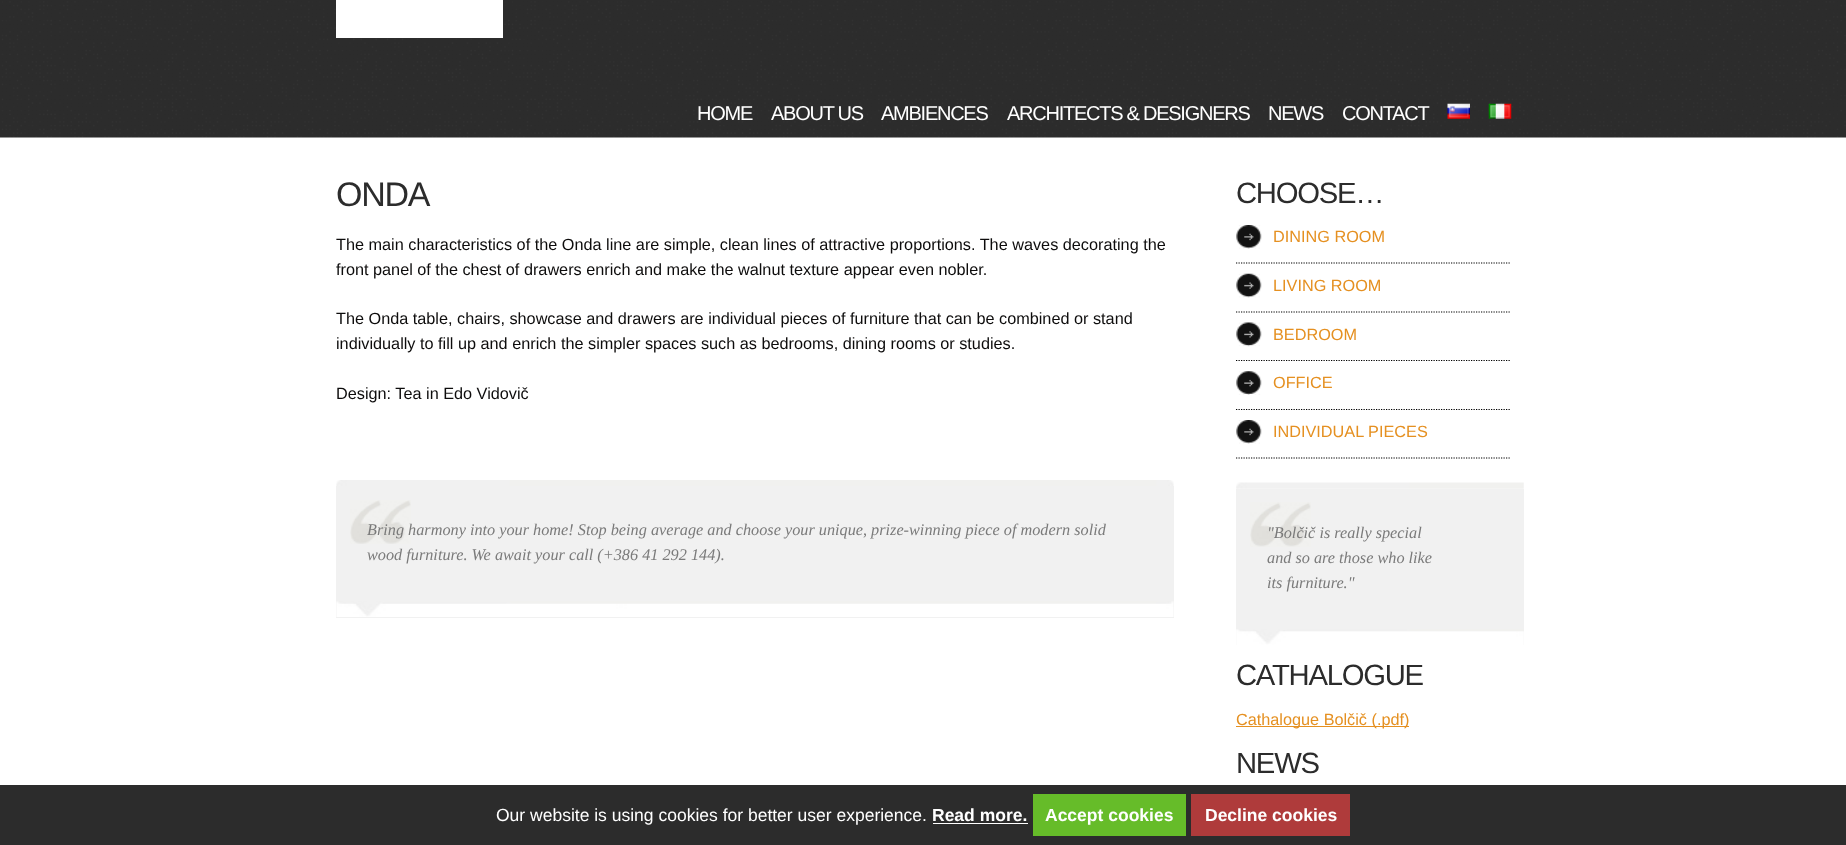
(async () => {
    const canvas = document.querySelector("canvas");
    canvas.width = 1846;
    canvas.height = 845;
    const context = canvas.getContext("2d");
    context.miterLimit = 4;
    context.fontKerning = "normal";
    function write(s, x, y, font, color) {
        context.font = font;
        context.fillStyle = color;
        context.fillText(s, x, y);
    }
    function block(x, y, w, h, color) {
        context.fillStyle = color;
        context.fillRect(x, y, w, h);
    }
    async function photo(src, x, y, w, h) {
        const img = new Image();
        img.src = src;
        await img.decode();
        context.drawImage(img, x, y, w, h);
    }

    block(0, 0, 1846, 845, "rgb(255, 255, 255)");
    await photo("media/1.png", 0, 0, 1846, 138);
    block(336, 0, 167, 38, "rgb(255, 255, 255)");
    context.letterSpacing = "-1.25px";
    write("HOME", 697, 120, "20px Liberation Sans", "rgb(255, 255, 255)");
    write("ABOUT US", 771, 120, "20px Liberation Sans", "rgb(255, 255, 255)");
    write("AMBIENCES", 881, 120, "20px Liberation Sans", "rgb(255, 255, 255)");
    write("ARCHITECTS & DESIGNERS", 1007, 120, "20px Liberation Sans", "rgb(255, 255, 255)");
    write("NEWS", 1268, 120, "20px Liberation Sans", "rgb(255, 255, 255)");
    write("CONTACT", 1342, 120, "20px Liberation Sans", "rgb(255, 255, 255)");
    await photo("media/2.png", 1447, 103, 23, 16);
    await photo("media/3.png", 1488, 103, 24, 16);
    write("ONDA", 336, 206, "34px Liberation Sans", "rgb(44, 44, 44)");
    context.letterSpacing = "0px";
    write("The main characteristics of the Onda line are simple, clean lines of attractive proportions. The waves decorating the", 336, 250, "16.25px Liberation Sans", "rgb(13, 12, 12)");
    write("front panel of the chest of drawers enrich and make the walnut texture appear even nobler.", 336, 275, "16.25px Liberation Sans", "rgb(13, 12, 12)");
    write("The Onda table, chairs, showcase and drawers are individual pieces of furniture that can be combined or stand", 336, 324, "16.25px Liberation Sans", "rgb(13, 12, 12)");
    write("individually to fill up and enrich the simpler spaces such as bedrooms, dining rooms or studies.", 336, 349, "16.25px Liberation Sans", "rgb(13, 12, 12)");
    write("Design: Tea in Edo Vidovič", 336, 399, "16.25px Liberation Sans", "rgb(13, 12, 12)");
    await photo("media/4.png", 336, 480, 838, 6);
    block(336, 486, 838, 132, "rgb(241, 241, 241)");
    await photo("media/5.png", 336, 601, 838, 16);
    await photo("media/6.png", 350, 500, 61, 44);
    write("Bring harmony into your home! Stop being average and choose your unique, prize-winning piece of modern solid", 367, 535, "italic 16.25px Liberation Serif", "rgb(122, 122, 122)");
    write("wood furniture. We await your call (+386 41 292 144).", 367, 560, "italic 16.25px Liberation Serif", "rgb(122, 122, 122)");
    context.letterSpacing = "-1.25px";
    write("CHOOSE…", 1236, 203, "29.25px Liberation Sans", "rgb(44, 44, 44)");
    await photo("media/7.png", 1236, 225, 26, 24);
    context.beginPath();
    context.moveTo(1236, 263);
    context.lineTo(1511, 263);
    context.strokeStyle = "rgb(0, 0, 0)";
    context.lineWidth = 1.2;
    context.setLineDash([1.25, 1.25]);
    context.stroke();
    context.letterSpacing = "0px";
    write("DINING ROOM", 1273, 242, "16.25px Liberation Sans", "rgb(229, 144, 33)");
    await photo("media/8.png", 1236, 273, 26, 25);
    context.beginPath();
    context.moveTo(1236, 312);
    context.lineTo(1511, 312);
    context.stroke();
    write("LIVING ROOM", 1273, 291, "16.25px Liberation Sans", "rgb(229, 144, 33)");
    await photo("media/9.png", 1236, 322, 26, 25);
    context.beginPath();
    context.moveTo(1236, 360.5);
    context.lineTo(1511, 360.5);
    context.stroke();
    write("BEDROOM", 1273, 340, "16.25px Liberation Sans", "rgb(229, 144, 33)");
    await photo("media/10.png", 1236, 371, 26, 24);
    context.beginPath();
    context.moveTo(1236, 409.5);
    context.lineTo(1511, 409.5);
    context.stroke();
    write("OFFICE", 1273, 388, "16.25px Liberation Sans", "rgb(229, 144, 33)");
    await photo("media/7.png", 1236, 420, 26, 24);
    context.beginPath();
    context.moveTo(1236, 458);
    context.lineTo(1511, 458);
    context.stroke();
    write("INDIVIDUAL PIECES", 1273, 437, "16.25px Liberation Sans", "rgb(229, 144, 33)");
    await photo("media/11.png", 1236, 482, 288, 7);
    block(1236, 489, 288, 156, "rgb(241, 241, 241)");
    await photo("media/12.png", 1236, 629, 288, 16);
    await photo("media/13.png", 1250, 502, 61, 45);
    write("\"Bolčič is really special", 1267, 538, "italic 16.25px Liberation Serif", "rgb(122, 122, 122)");
    write("and so are those who like", 1267, 563, "italic 16.25px Liberation Serif", "rgb(122, 122, 122)");
    write("its furniture.\"", 1267, 588, "italic 16.25px Liberation Serif", "rgb(122, 122, 122)");
    context.letterSpacing = "-1.25px";
    write("CATHALOGUE", 1236, 685, "29.25px Liberation Sans", "rgb(44, 44, 44)");
    block(1236, 726, 173, 1, "rgb(229, 144, 33)");
    context.letterSpacing = "0px";
    write("Cathalogue Bolčič (.pdf)", 1236, 725, "16.25px Liberation Sans", "rgb(229, 144, 33)");
    context.letterSpacing = "-1.25px";
    write("NEWS", 1236, 773, "29.25px Liberation Sans", "rgb(44, 44, 44)");
    block(0, 785, 1846, 60, "rgb(44, 44, 44)");
    context.letterSpacing = "0px";
    write("Our website is using cookies for better user experience.", 496, 821, "17.5px Liberation Sans", "rgb(255, 255, 255)");
    write("Read more.", 932, 821, "bold 17.5px Liberation Sans", "rgb(255, 255, 255)");
    block(933, 823, 95, 1, "rgb(255, 255, 255)");
    block(1033, 794, 153, 42, "rgb(102, 188, 41)");
    write("Accept cookies", 1045, 821, "bold 17.5px Liberation Sans", "rgb(255, 255, 255)");
    block(1191, 794, 159, 42, "rgb(175, 59, 59)");
    write("Decline cookies", 1205, 821, "bold 17.5px Liberation Sans", "rgb(255, 255, 255)");
})();
